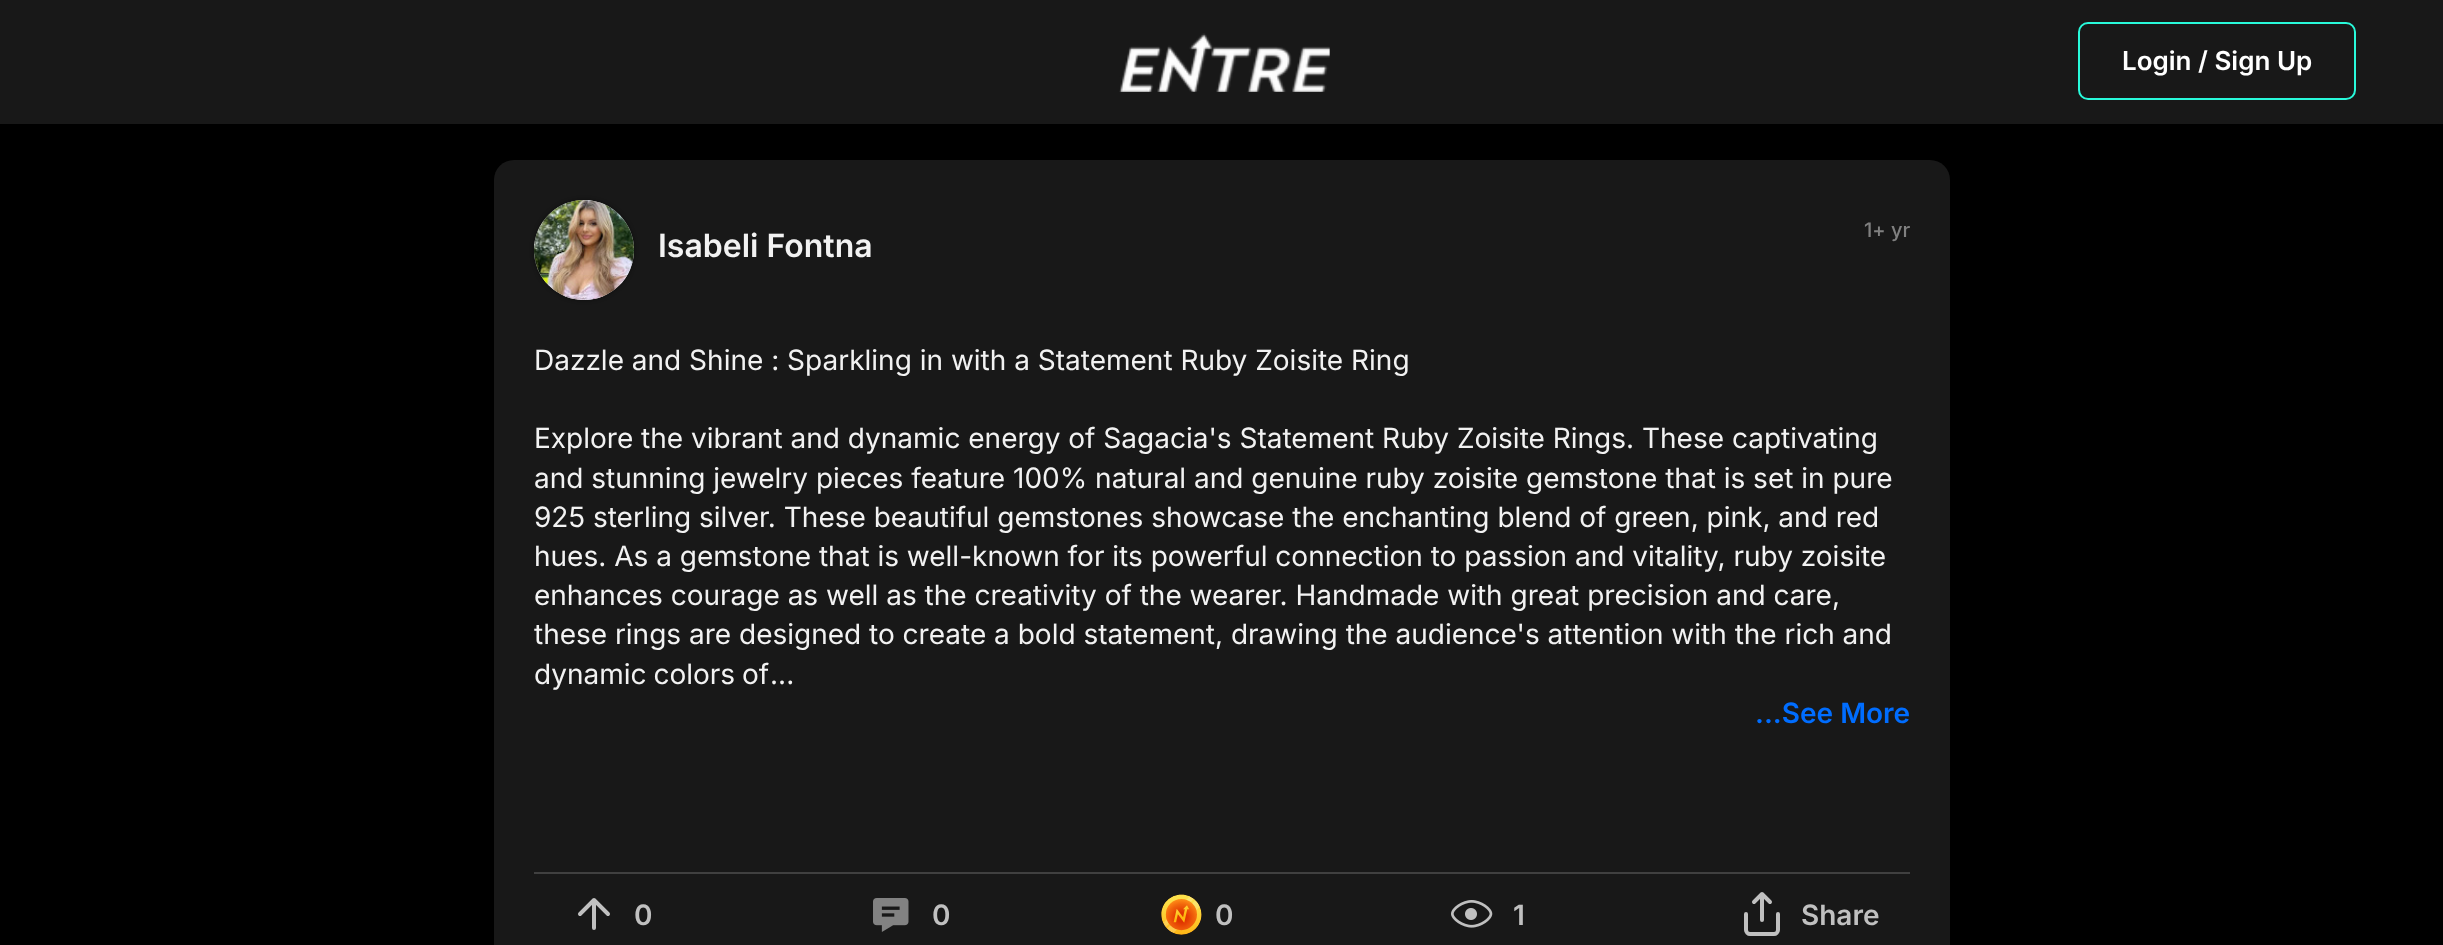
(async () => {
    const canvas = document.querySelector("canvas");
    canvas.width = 2443;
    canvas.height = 945;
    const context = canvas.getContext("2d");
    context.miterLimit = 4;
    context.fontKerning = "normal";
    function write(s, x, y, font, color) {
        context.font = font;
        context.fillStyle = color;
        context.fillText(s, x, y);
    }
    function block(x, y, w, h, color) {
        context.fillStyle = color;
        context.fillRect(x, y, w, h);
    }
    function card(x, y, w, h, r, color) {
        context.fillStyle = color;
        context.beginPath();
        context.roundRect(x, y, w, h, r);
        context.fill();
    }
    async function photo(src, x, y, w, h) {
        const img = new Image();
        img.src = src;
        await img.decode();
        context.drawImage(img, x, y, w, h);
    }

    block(0, 0, 2443, 945, "rgb(0, 0, 0)");
    block(0, 0, 2443, 124, "rgb(24, 24, 24)");
    await photo("media/1.png", 1119, 33, 211, 59);
    context.beginPath();
    context.roundRect(2079, 23, 276, 76, 9);
    context.strokeStyle = "rgb(40, 249, 218)";
    context.lineWidth = 2;
    context.stroke();
    write("Login / Sign Up", 2122, 70, "600 26px Inter", "rgb(255, 255, 255)");
    card(494, 160, 1456, 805, 20, "rgb(24, 24, 24)");
    context.fillStyle = "rgba(0, 0, 0, 0.5)";
    context.filter = "blur(2px)";
    context.beginPath();
    context.roundRect(534, 200, 100, 100, 50);
    context.fill();
    context.filter = "none";
    context.fillStyle = "rgb(242, 242, 242)";
    context.beginPath();
    context.arc(584, 250, 50, 0, Math.PI * 2);
    context.fill();
    await photo("media/2.png", 534, 200, 100, 100);
    write("Isabeli Fontna", 658, 257, "600 32px Inter", "rgb(242, 242, 242)");
    write("1+ yr", 1864, 237, "500 20px Inter", "rgb(128, 128, 128)");
    block(534, 872, 1376, 2, "rgb(64, 64, 64)");
    write("Dazzle and Shine : Sparkling in with a Statement Ruby Zoisite Ring", 534, 370, "28px Inter", "rgb(242, 242, 242)");
    write("Explore the vibrant and dynamic energy of Sagacia's Statement Ruby Zoisite Rings. These captivating", 534, 448, "28px Inter", "rgb(242, 242, 242)");
    write("and stunning jewelry pieces feature 100% natural and genuine ruby zoisite gemstone that is set in pure", 534, 488, "28px Inter", "rgb(242, 242, 242)");
    write("925 sterling silver. These beautiful gemstones showcase the enchanting blend of green, pink, and red", 534, 527, "28px Inter", "rgb(242, 242, 242)");
    write("hues. As a gemstone that is well-known for its powerful connection to passion and vitality, ruby zoisite", 534, 566, "28px Inter", "rgb(242, 242, 242)");
    write("enhances courage as well as the creativity of the wearer. Handmade with great precision and care,", 534, 605, "28px Inter", "rgb(242, 242, 242)");
    write("these rings are designed to create a bold statement, drawing the audience's attention with the rich and", 534, 644, "28px Inter", "rgb(242, 242, 242)");
    context.wordSpacing = "-1px";
    write("dynamic colors of", 534, 684, "28px Inter", "rgb(242, 242, 242)");
    context.wordSpacing = "0px";
    write("...", 770, 684, "28px Inter", "rgb(242, 242, 242)");
    write("...See More", 1755, 723, "600 28px Inter", "rgb(0, 109, 255)");
    context.beginPath();
    context.moveTo(594, 928);
    context.lineTo(594, 900);
    context.moveTo(580, 914);
    context.lineTo(594, 900);
    context.lineTo(608, 914);
    context.strokeStyle = "rgb(192, 192, 192)";
    context.lineWidth = 4;
    context.lineCap = "round";
    context.lineJoin = "round";
    context.stroke();
    write("0", 634, 925, "600 28px Inter", "rgb(192, 192, 192)");
    await photo("media/3.png", 873, 898, 36, 34);
    write("0", 932, 925, "600 28px Inter", "rgb(192, 192, 192)");
    await photo("media/4.png", 1161, 894, 41, 41);
    write("0", 1215, 925, "600 28px Inter", "rgb(192, 192, 192)");
    await photo("media/5.png", 1451, 900, 42, 28);
    write("1", 1513, 925, "600 28px Inter", "rgb(192, 192, 192)");
    context.beginPath();
    context.moveTo(1746, 914);
    context.lineTo(1746, 930);
    context.bezierCurveTo(1746, 932, 1748, 934, 1750, 934);
    context.lineTo(1774, 934);
    context.bezierCurveTo(1776, 934, 1778, 932, 1778, 930);
    context.lineTo(1778, 914);
    context.moveTo(1770, 902);
    context.lineTo(1762, 894);
    context.lineTo(1754, 902);
    context.moveTo(1762, 894);
    context.lineTo(1762, 920);
    context.stroke();
    write("Share", 1801, 925, "600 28px Inter", "rgb(192, 192, 192)");
})();
